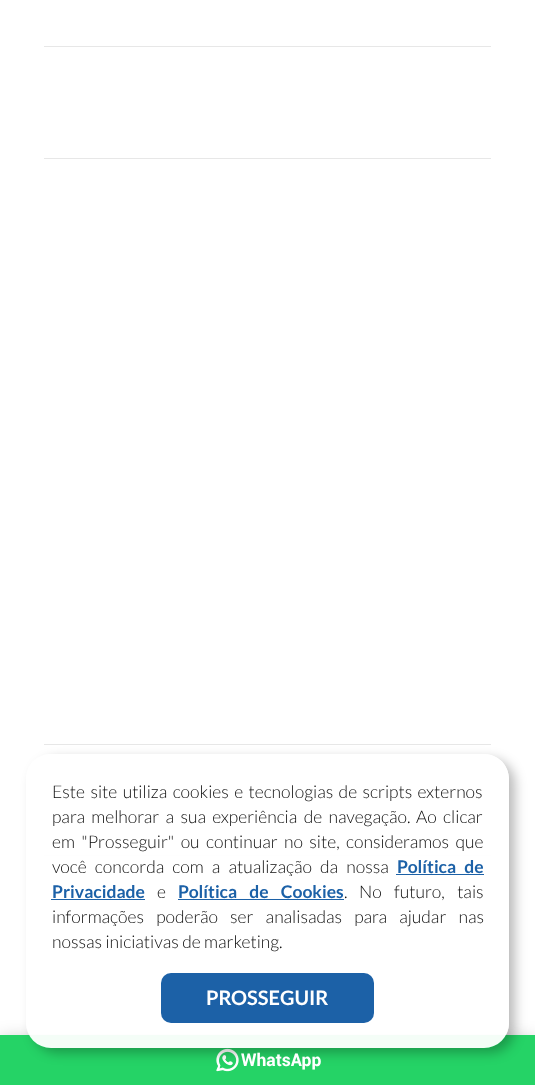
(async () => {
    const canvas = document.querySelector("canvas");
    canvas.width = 535;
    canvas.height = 1085;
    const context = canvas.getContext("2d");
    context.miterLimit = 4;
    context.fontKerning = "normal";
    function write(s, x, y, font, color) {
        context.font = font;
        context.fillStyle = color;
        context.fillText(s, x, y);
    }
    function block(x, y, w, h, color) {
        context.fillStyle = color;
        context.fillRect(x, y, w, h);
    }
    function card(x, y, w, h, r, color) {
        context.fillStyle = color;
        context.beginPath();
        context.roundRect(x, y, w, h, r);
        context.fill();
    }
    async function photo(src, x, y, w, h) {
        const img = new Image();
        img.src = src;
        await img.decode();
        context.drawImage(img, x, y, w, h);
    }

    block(0, 0, 535, 1085, "rgb(255, 255, 255)");
    block(44, 46, 447, 1, "rgb(231, 231, 231)");
    block(44, 158, 447, 1, "rgb(231, 231, 231)");
    block(44, 744, 447, 1, "rgb(231, 231, 231)");
    block(44, 855, 447, 1, "rgb(231, 231, 231)");
    context.fillStyle = "rgba(0, 0, 0, 0.3)";
    context.filter = "blur(9.5px)";
    context.beginPath();
    context.rect(0, 1041, 535, 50);
    context.fill();
    context.filter = "none";
    block(0, 1035, 535, 50, "rgb(37, 211, 102)");
    await photo("media/1.png", 216, 1048, 23, 24);
    await photo("media/2.png", 217, 1050, 20, 21);
    context.save();
    context.beginPath();
    context.moveTo(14, 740);
    context.lineTo(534, 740);
    context.lineTo(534, 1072);
    context.lineTo(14, 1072);
    context.closePath();
    context.moveTo(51, 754);
    context.lineTo(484, 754);
    context.bezierCurveTo(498, 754, 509, 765, 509, 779);
    context.lineTo(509, 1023);
    context.bezierCurveTo(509, 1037, 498, 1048, 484, 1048);
    context.lineTo(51, 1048);
    context.bezierCurveTo(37, 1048, 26, 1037, 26, 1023);
    context.lineTo(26, 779);
    context.bezierCurveTo(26, 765, 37, 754, 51, 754);
    context.closePath();
    context.clip("evenodd");
    context.fillStyle = "rgba(0, 0, 0, 0.27)";
    context.filter = "blur(6px)";
    context.beginPath();
    context.roundRect(33, 759, 482, 294, 25);
    context.fill();
    context.filter = "none";
    context.restore();
    card(26, 754, 483, 294, 25, "rgba(255, 255, 255, 0.95)");
    context.wordSpacing = "2px";
    write("Este site utiliza cookies e tecnologias de scripts externos", 52, 798, "300 17.5px Lato", "rgb(13, 13, 13)");
    context.wordSpacing = "3px";
    write("para melhorar a sua experiência de navegação.", 52, 823, "300 17.5px Lato", "rgb(13, 13, 13)");
    write("Ao clicar", 416, 823, "300 17.5px Lato", "rgb(13, 13, 13)");
    write("em \"Prosseguir\" ou continuar no site, consideramos que", 52, 848, "300 17.5px Lato", "rgb(13, 13, 13)");
    context.wordSpacing = "4.75px";
    write("você concorda com a atualização da nossa", 52, 873, "300 17.5px Lato", "rgb(13, 13, 13)");
    write("Política de", 397, 873, "bold 17.5px Lato", "rgb(28, 97, 167)");
    block(396, 874, 88, 1, "rgb(28, 97, 167)");
    context.wordSpacing = "0px";
    write("Privacidade", 52, 898, "bold 17.5px Lato", "rgb(28, 97, 167)");
    block(51, 899, 94, 1, "rgb(28, 97, 167)");
    write("e", 157, 898, "300 17.5px Lato", "rgb(13, 13, 13)");
    context.wordSpacing = "8.75px";
    write("Política de Cookies", 178, 898, "bold 17.5px Lato", "rgb(28, 97, 167)");
    block(178, 899, 166, 1, "rgb(28, 97, 167)");
    context.wordSpacing = "0px";
    write(".", 344, 898, "300 17.5px Lato", "rgb(13, 13, 13)");
    context.wordSpacing = "9px";
    write("No futuro, tais", 359, 898, "300 17.5px Lato", "rgb(13, 13, 13)");
    context.wordSpacing = "8.75px";
    write("informações poderão ser analisadas para ajudar nas", 52, 923, "300 17.5px Lato", "rgb(13, 13, 13)");
    context.wordSpacing = "0px";
    write("nossas iniciativas de marketing.", 52, 948, "300 17.5px Lato", "rgb(13, 13, 13)");
    card(161, 973, 213, 50, 10, "rgb(28, 97, 167)");
    write("PROSSEGUIR", 206, 1005, "bold 20px Lato", "rgb(255, 255, 255)");
    write("WhatsApp", 241, 1066, "bold 17.5px Roboto", "rgb(255, 255, 255)");
})();
